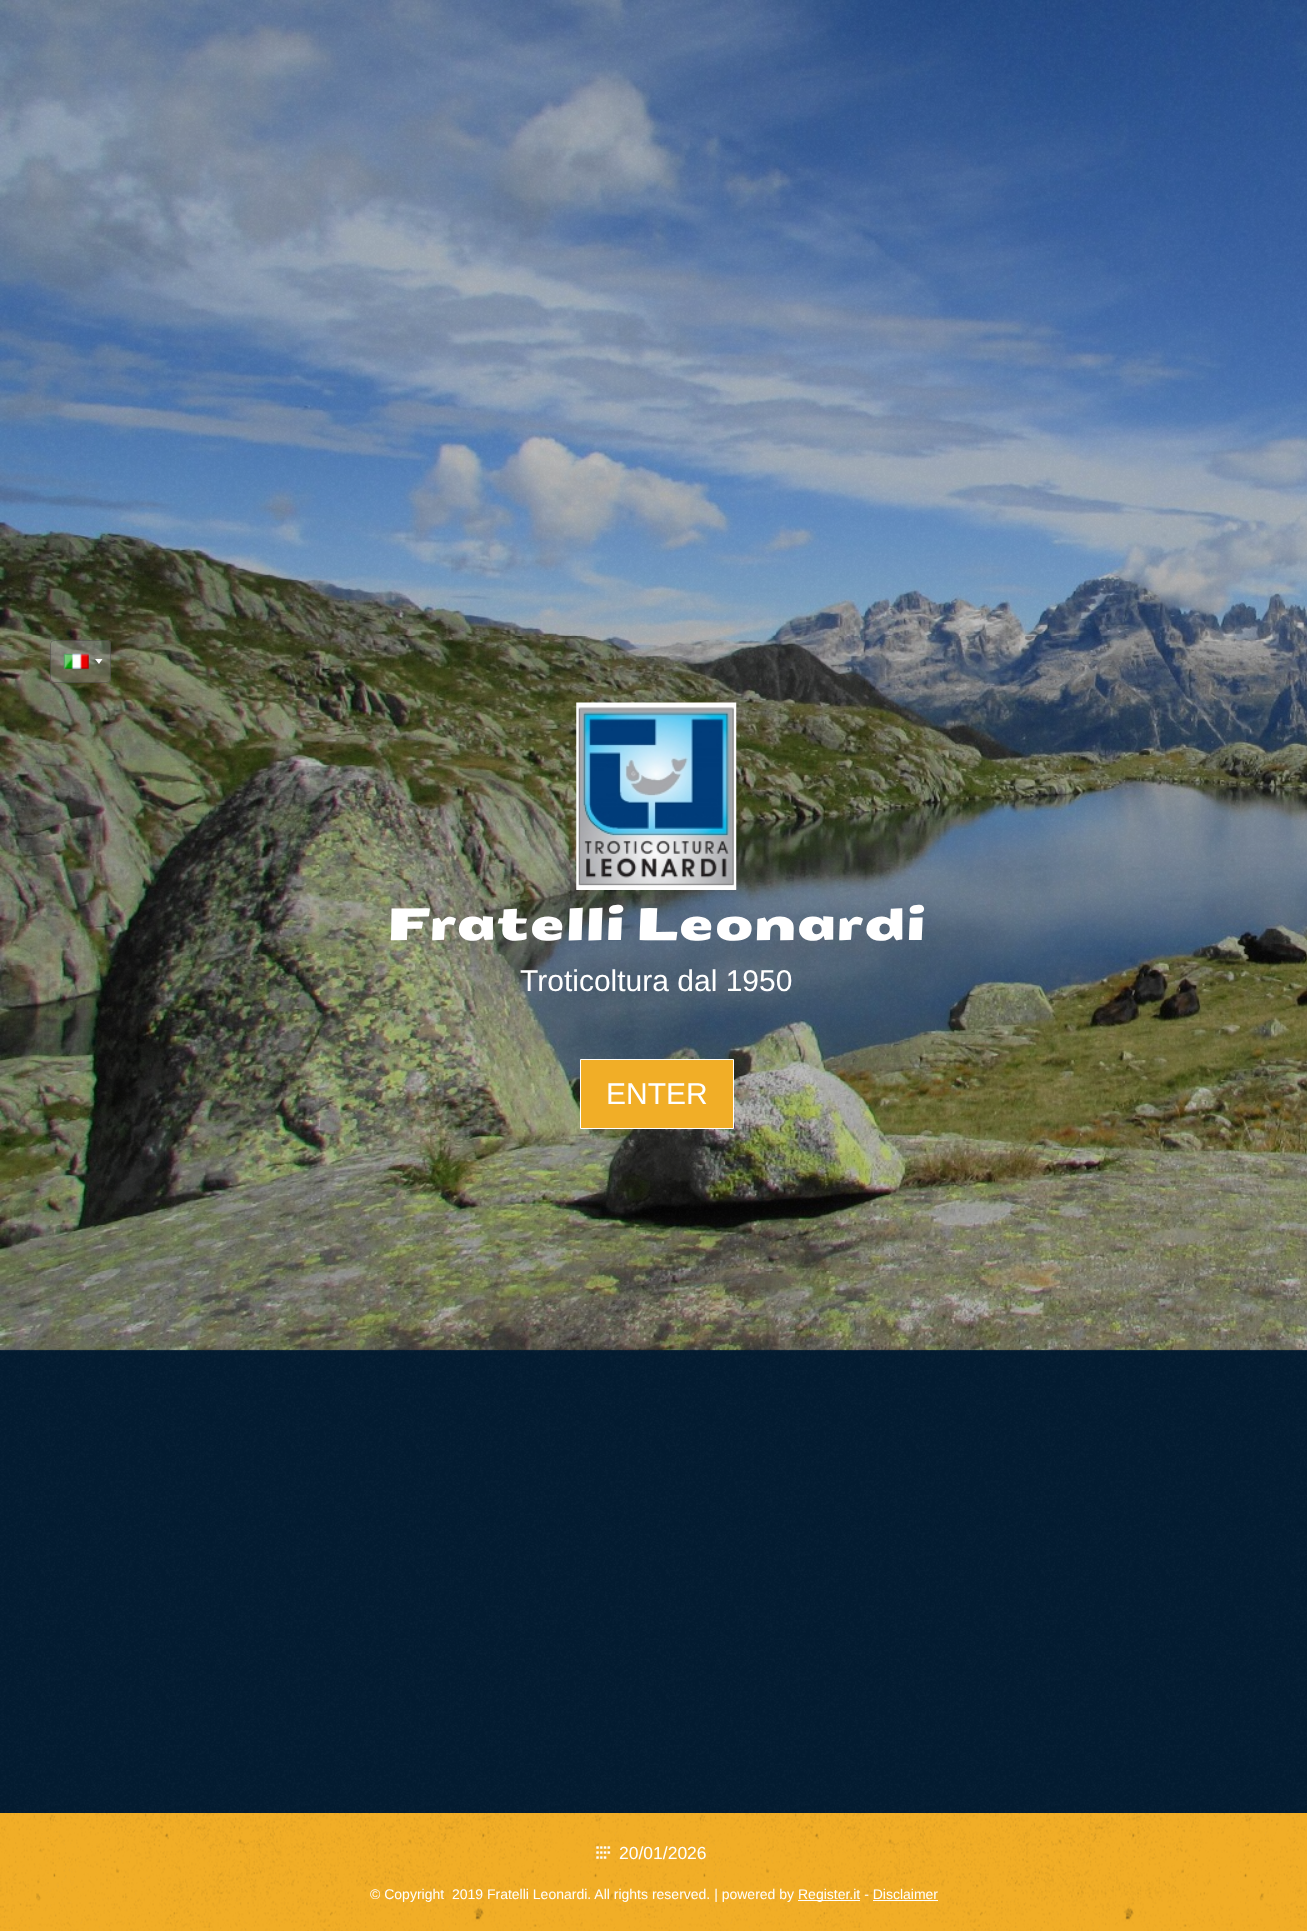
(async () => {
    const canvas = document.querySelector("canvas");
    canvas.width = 1307;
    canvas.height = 1931;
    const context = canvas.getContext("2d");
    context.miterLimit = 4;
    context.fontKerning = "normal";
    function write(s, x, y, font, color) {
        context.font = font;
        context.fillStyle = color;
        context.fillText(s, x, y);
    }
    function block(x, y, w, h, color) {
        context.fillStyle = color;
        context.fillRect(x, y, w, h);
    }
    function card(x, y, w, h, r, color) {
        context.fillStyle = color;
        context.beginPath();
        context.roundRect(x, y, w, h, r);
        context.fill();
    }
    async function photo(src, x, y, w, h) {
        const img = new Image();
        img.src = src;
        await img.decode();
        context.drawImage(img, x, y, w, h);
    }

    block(0, 0, 1307, 1931, "rgb(4, 36, 65)");
    await photo("media/1.png", 0, 0, 1307, 1351);
    await photo("media/2.png", 0, 0, 1307, 1813);
    card(50, 640, 61, 43, 4, "rgba(153, 153, 153, 0.4)");
    context.beginPath();
    context.roundRect(50.5, 640.5, 60, 42, 3.5);
    context.strokeStyle = "rgba(51, 51, 51, 0.4)";
    context.stroke();
    await photo("media/3.png", 63, 653, 26, 16);
    context.fillStyle = "rgb(255, 255, 255)";
    context.beginPath();
    context.moveTo(95, 659);
    context.lineTo(102.5, 659);
    context.lineTo(99, 664);
    context.closePath();
    context.fill();
    await photo("media/4.png", 576, 702, 161, 188);
    write("Fratelli Leonardi", 387, 940, "45px Seymour One", "rgb(255, 255, 255)");
    write("Troticoltura dal 1950", 520, 991, "30px Liberation Sans", "rgb(255, 255, 255)");
    context.fillStyle = "rgb(241, 174, 39)";
    context.beginPath();
    context.rect(580.5, 1059.5, 153, 69);
    context.fill();
    context.strokeStyle = "rgb(255, 255, 255)";
    context.stroke();
    write("ENTER", 606, 1104, "30px Liberation Sans", "rgb(255, 255, 255)");
    block(0, 1813, 1307, 118, "rgb(241, 174, 39)");
    await photo("media/5.png", 0, 1813, 1307, 118);
    await photo("media/6.png", 596, 1846, 15, 13);
    write("20/01/2026", 619, 1859, "17.5px Liberation Sans", "rgb(255, 255, 255)");
    write("© Copyright  2019 Fratelli Leonardi. All rights reserved. | powered by", 370, 1899, "14px Liberation Sans", "rgb(255, 255, 255)");
    block(798, 1900, 62, 1, "rgb(255, 255, 255)");
    write("Register.it - Disclaimer", 798, 1899, "14px Liberation Sans", "rgb(255, 255, 255)");
    block(873, 1900, 65, 1, "rgb(255, 255, 255)");
})();
